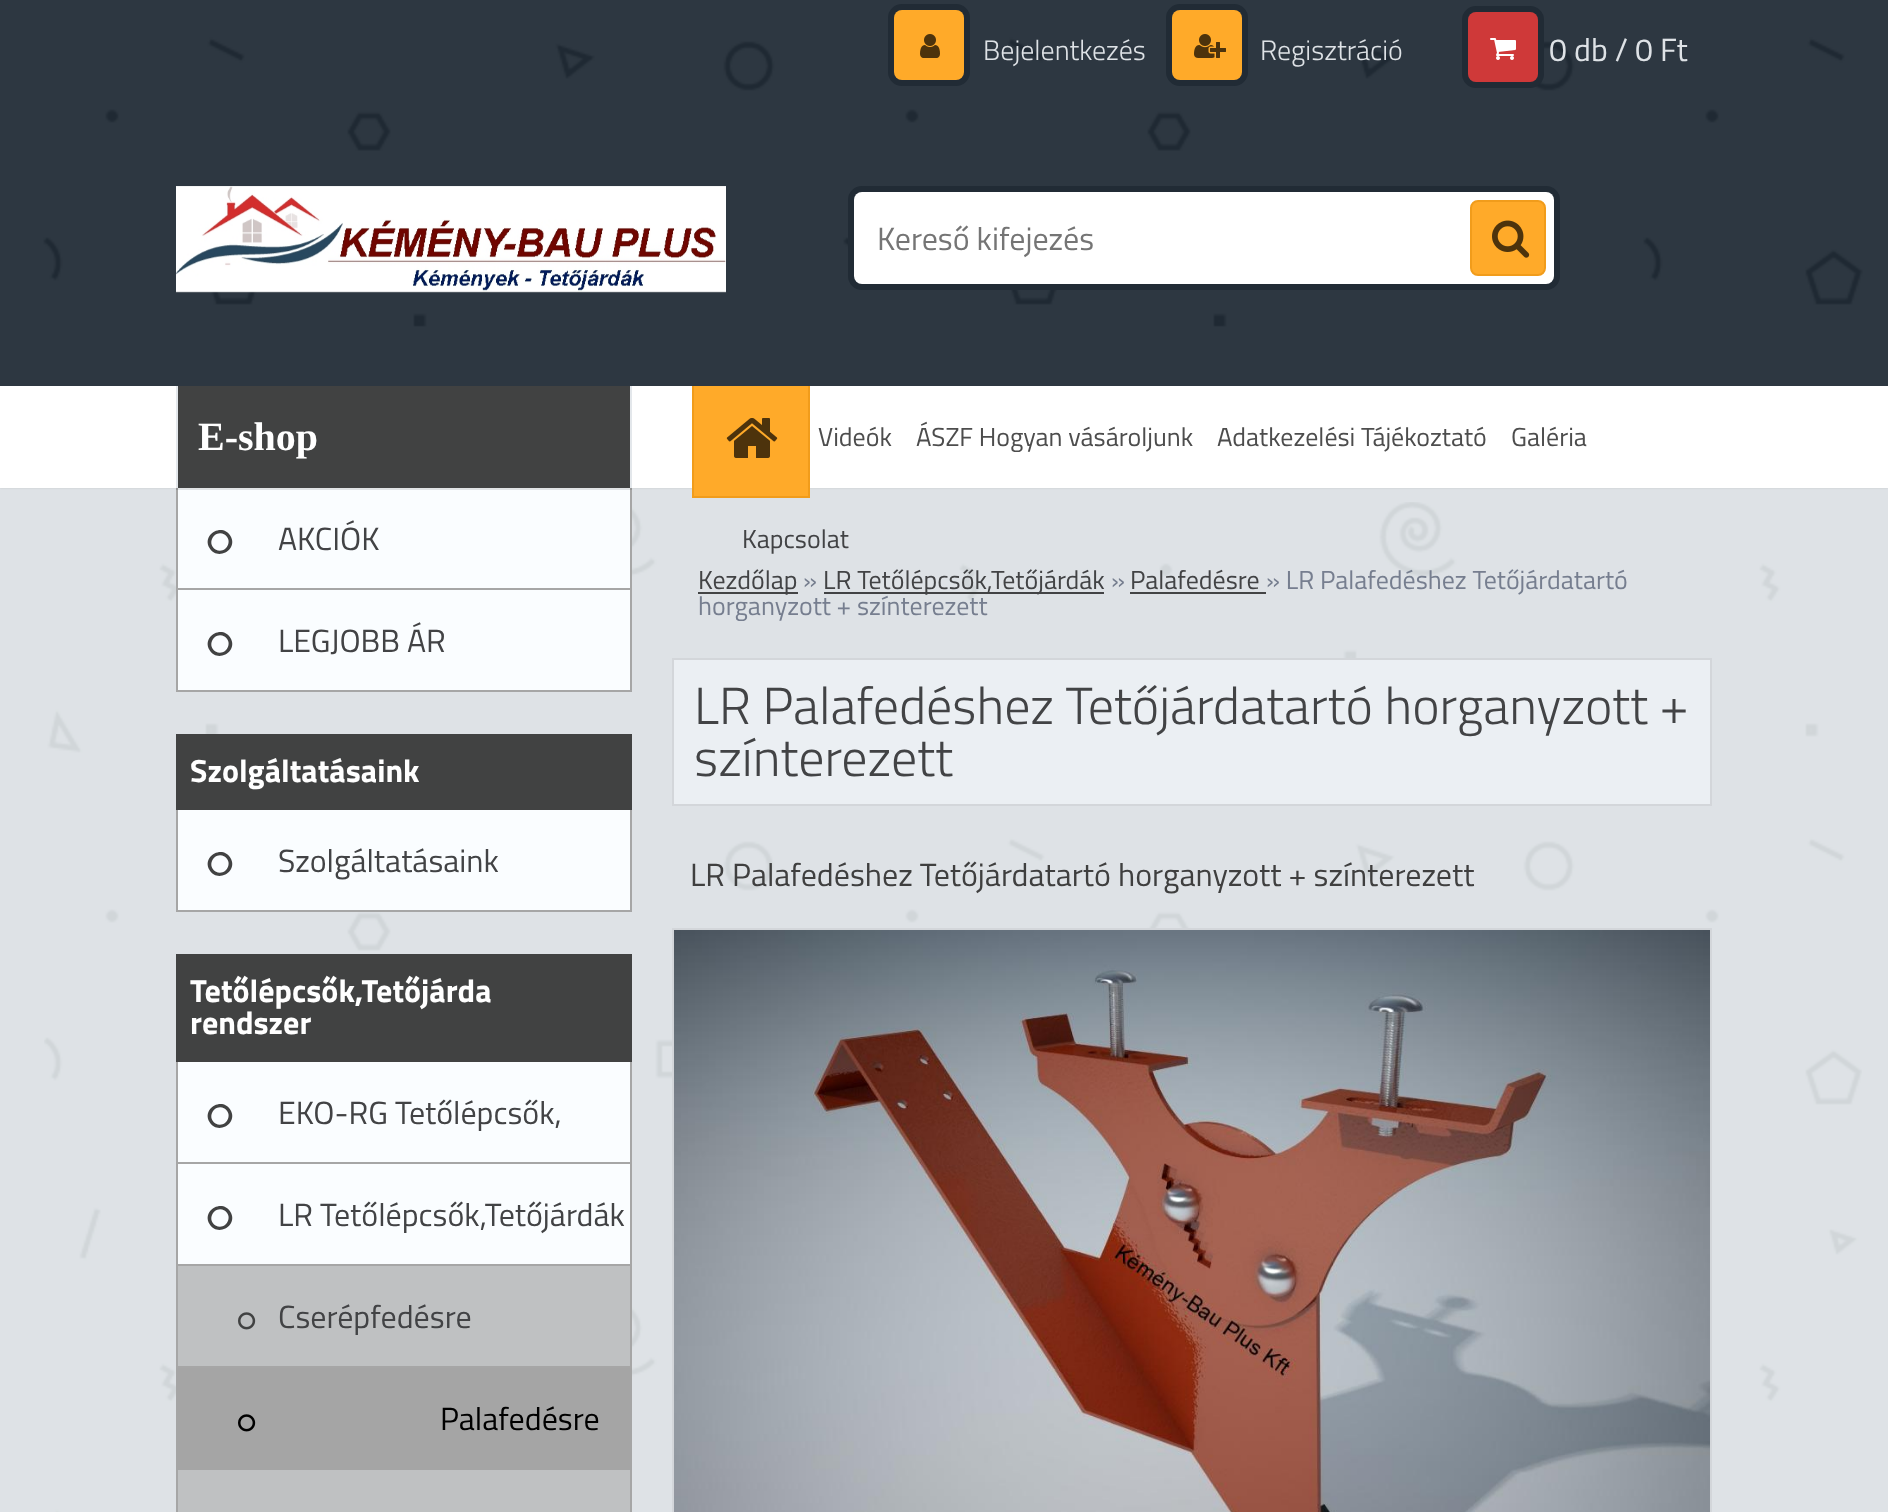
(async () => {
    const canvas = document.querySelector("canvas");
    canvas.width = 1888;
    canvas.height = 1512;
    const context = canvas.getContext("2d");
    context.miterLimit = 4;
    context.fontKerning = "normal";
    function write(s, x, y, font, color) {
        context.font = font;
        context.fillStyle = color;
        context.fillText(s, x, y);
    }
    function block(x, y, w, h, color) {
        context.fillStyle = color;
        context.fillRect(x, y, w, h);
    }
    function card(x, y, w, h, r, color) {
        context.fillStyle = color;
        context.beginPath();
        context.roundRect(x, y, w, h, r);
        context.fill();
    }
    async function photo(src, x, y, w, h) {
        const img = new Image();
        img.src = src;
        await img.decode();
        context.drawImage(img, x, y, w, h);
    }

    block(0, 0, 1888, 1512, "rgb(222, 226, 230)");
    await photo("media/1.png", 44, 502, 1818, 1010);
    context.fillStyle = "rgba(0, 0, 0, 0.1)";
    context.filter = "blur(1px)";
    context.beginPath();
    context.rect(0, 0, 1888, 488);
    context.fill();
    context.filter = "none";
    await photo("media/9.png", 0, 0, 1888, 386);
    context.beginPath();
    context.roundRect(891, 7, 76, 76, 11);
    context.strokeStyle = "rgb(33, 43, 53)";
    context.lineWidth = 6;
    context.stroke();
    card(894, 10, 70, 70, 8, "rgb(255, 170, 41)");
    await photo("media/2.png", 920, 34, 20, 24);
    write("Bejelentkezés", 983, 60, "300 28px Titillium Web", "rgb(222, 226, 230)");
    context.beginPath();
    context.roundRect(1169, 7, 76, 76, 11);
    context.stroke();
    card(1172, 10, 70, 70, 8, "rgb(255, 170, 41)");
    await photo("media/3.png", 1194, 34, 32, 24);
    write("Regisztráció", 1260, 60, "300 28px Titillium Web", "rgb(222, 226, 230)");
    context.beginPath();
    context.roundRect(1465, 9, 76, 76, 11);
    context.stroke();
    card(1468, 12, 70, 70, 8, "rgb(207, 57, 57)");
    await photo("media/4.png", 1490, 38, 26, 22);
    write("0 db / 0 Ft", 1549, 61, "32px Titillium Web", "rgb(222, 226, 230)");
    block(0, 386, 1888, 102, "rgb(255, 255, 255)");
    block(694, 386, 114, 110, "rgb(255, 170, 41)");
    block(808, 386, 2, 112, "rgb(241, 156, 27)");
    block(692, 496, 118, 2, "rgb(241, 156, 27)");
    block(692, 386, 2, 112, "rgb(241, 156, 27)");
    await photo("media/5.png", 726, 418, 52, 40);
    write("Videók", 818, 446, "26px Titillium Web", "rgb(77, 77, 77)");
    write("ÁSZF Hogyan vásároljunk", 916, 446, "26px Titillium Web", "rgb(77, 77, 77)");
    write("Adatkezelési Tájékoztató", 1217, 446, "26px Titillium Web", "rgb(77, 77, 77)");
    write("Galéria", 1511, 446, "26px Titillium Web", "rgb(77, 77, 77)");
    write("Kapcsolat", 742, 548, "26px Titillium Web", "rgb(66, 67, 69)");
    block(178, 488, 452, 100, "rgb(250, 253, 255)");
    block(630, 488, 2, 204, "rgb(166, 166, 166)");
    block(176, 588, 456, 2, "rgb(166, 166, 166)");
    block(176, 488, 2, 102, "rgb(166, 166, 166)");
    block(176, 488, 456, 2, "rgba(0, 0, 0, 0.1)");
    block(178, 386, 452, 102, "rgb(65, 66, 66)");
    block(630, 386, 2, 102, "rgb(227, 231, 235)");
    block(176, 386, 2, 102, "rgb(227, 231, 235)");
    write("E-shop", 198, 450, "bold 40px Liberation Serif", "rgb(255, 255, 255)");
    context.fillStyle = "rgb(65, 66, 66)";
    context.beginPath();
    context.moveTo(224.5, 534.5);
    context.bezierCurveTo(214.5, 529, 206, 543.5, 215.5, 549.5);
    context.bezierCurveTo(225.5, 555, 234, 540.5, 224.5, 534.5);
    context.closePath();
    context.moveTo(230.5, 536);
    context.bezierCurveTo(238.5, 549.5, 217.5, 561.5, 209.5, 548);
    context.bezierCurveTo(201.5, 534.5, 222.5, 522.5, 230.5, 536);
    context.closePath();
    context.fill();
    write("AKCIÓK", 278, 550, "32px Titillium Web", "rgb(66, 67, 69)");
    block(178, 590, 452, 100, "rgb(250, 253, 255)");
    block(176, 690, 456, 2, "rgb(166, 166, 166)");
    block(176, 590, 2, 102, "rgb(166, 166, 166)");
    context.fillStyle = "rgb(65, 66, 66)";
    context.beginPath();
    context.moveTo(224.5, 636.5);
    context.bezierCurveTo(214.5, 631, 206, 645.5, 215.5, 651.5);
    context.bezierCurveTo(225.5, 657, 234, 642.5, 224.5, 636.5);
    context.closePath();
    context.moveTo(230.5, 638);
    context.bezierCurveTo(238.5, 651.5, 217.5, 663.5, 209.5, 650);
    context.bezierCurveTo(201.5, 636.5, 222.5, 624.5, 230.5, 638);
    context.closePath();
    context.fill();
    write("LEGJOBB ÁR", 278, 652, "32px Titillium Web", "rgb(66, 67, 69)");
    block(176, 734, 456, 76, "rgb(65, 66, 66)");
    write("Szolgáltatásaink", 190, 782, "bold 32px Titillium Web", "rgb(255, 255, 255)");
    block(178, 810, 452, 100, "rgb(250, 253, 255)");
    block(630, 810, 2, 102, "rgb(166, 166, 166)");
    block(176, 910, 456, 2, "rgb(166, 166, 166)");
    block(176, 810, 2, 102, "rgb(166, 166, 166)");
    context.fillStyle = "rgb(65, 66, 66)";
    context.beginPath();
    context.moveTo(224.5, 856.5);
    context.bezierCurveTo(214.5, 851, 206, 865.5, 215.5, 871.5);
    context.bezierCurveTo(225.5, 877, 234, 862.5, 224.5, 856.5);
    context.closePath();
    context.moveTo(230.5, 858);
    context.bezierCurveTo(238.5, 871.5, 217.5, 883.5, 209.5, 870);
    context.bezierCurveTo(201.5, 856.5, 222.5, 844.5, 230.5, 858);
    context.closePath();
    context.fill();
    write("Szolgáltatásaink", 278, 872, "32px Titillium Web", "rgb(66, 67, 69)");
    block(176, 954, 456, 108, "rgb(65, 66, 66)");
    write("Tetőlépcsők,Tetőjárda", 190, 1002, "bold 32px Titillium Web", "rgb(255, 255, 255)");
    write("rendszer", 190, 1034, "bold 32px Titillium Web", "rgb(255, 255, 255)");
    block(178, 1062, 452, 100, "rgb(250, 253, 255)");
    block(630, 1062, 2, 306, "rgb(166, 166, 166)");
    block(176, 1162, 456, 2, "rgb(166, 166, 166)");
    block(176, 1062, 2, 102, "rgb(166, 166, 166)");
    context.fillStyle = "rgb(65, 66, 66)";
    context.beginPath();
    context.moveTo(224.5, 1108.5);
    context.bezierCurveTo(214.5, 1103, 206, 1117.5, 215.5, 1123.5);
    context.bezierCurveTo(225.5, 1129, 234, 1114.5, 224.5, 1108.5);
    context.closePath();
    context.moveTo(230.5, 1110);
    context.bezierCurveTo(238.5, 1123.5, 217.5, 1135.5, 209.5, 1122);
    context.bezierCurveTo(201.5, 1108.5, 222.5, 1096.5, 230.5, 1110);
    context.closePath();
    context.fill();
    write("EKO-RG Tetőlépcsők,", 278, 1124, "32px Titillium Web", "rgb(66, 67, 69)");
    block(178, 1164, 452, 100, "rgb(250, 253, 255)");
    block(176, 1264, 456, 2, "rgb(166, 166, 166)");
    block(176, 1164, 2, 102, "rgb(166, 166, 166)");
    context.fillStyle = "rgb(65, 66, 66)";
    context.beginPath();
    context.moveTo(224.5, 1210.5);
    context.bezierCurveTo(214.5, 1205, 206, 1219.5, 215.5, 1225.5);
    context.bezierCurveTo(225.5, 1231, 234, 1216.5, 224.5, 1210.5);
    context.closePath();
    context.moveTo(230.5, 1212);
    context.bezierCurveTo(238.5, 1225.5, 217.5, 1237.5, 209.5, 1224);
    context.bezierCurveTo(201.5, 1210.5, 222.5, 1198.5, 230.5, 1212);
    context.closePath();
    context.fill();
    write("LR Tetőlépcsők,Tetőjárdák", 278, 1226, "32px Titillium Web", "rgb(66, 67, 69)");
    block(178, 1266, 452, 100, "rgb(191, 193, 194)");
    block(176, 1366, 456, 2, "rgb(166, 166, 166)");
    block(176, 1266, 2, 102, "rgb(166, 166, 166)");
    await photo("media/6.png", 238, 1312, 18, 18);
    write("Cserépfedésre", 278, 1328, "32px Titillium Web", "rgb(66, 67, 69)");
    block(176, 1368, 456, 102, "rgb(165, 165, 165)");
    await photo("media/7.png", 238, 1414, 18, 18);
    write("Palafedésre", 440, 1430, "32px Titillium Web", "rgb(0, 0, 0)");
    block(178, 1470, 452, 42, "rgb(191, 193, 194)");
    block(630, 1470, 2, 42, "rgb(166, 166, 166)");
    block(176, 1470, 2, 42, "rgb(166, 166, 166)");
    block(698, 592, 100, 2, "rgb(67, 68, 69)");
    write("Kezdőlap", 698, 589, "26px Titillium Web", "rgb(66, 67, 69)");
    write("»", 803, 589, "26px Titillium Web", "rgb(118, 126, 143)");
    block(824, 592, 280, 2, "rgba(0, 0, 0, 0.7)");
    write("LR Tetőlépcsők,Tetőjárdák", 823, 589, "26px Titillium Web", "rgb(66, 67, 69)");
    write("»", 1111, 589, "26px Titillium Web", "rgb(118, 126, 143)");
    write("Palafedésre", 1130, 589, "26px Titillium Web", "rgb(66, 67, 69)");
    block(1130, 592, 136, 2, "rgb(67, 68, 69)");
    write("» LR Palafedéshez Tetőjárdatartó", 1266, 589, "26px Titillium Web", "rgb(118, 126, 143)");
    write("horganyzott + színterezett", 698, 615, "26px Titillium Web", "rgb(118, 126, 143)");
    context.fillStyle = "rgb(235, 239, 243)";
    context.beginPath();
    context.rect(673, 659, 1038, 146);
    context.fill();
    context.strokeStyle = "rgb(211, 214, 218)";
    context.lineWidth = 2;
    context.stroke();
    write("LR Palafedéshez Tetőjárdatartó horganyzott +", 694, 724, "300 52px Titillium Web", "rgb(66, 67, 69)");
    write("színterezett", 694, 776, "300 52px Titillium Web", "rgb(66, 67, 69)");
    write("LR Palafedéshez Tetőjárdatartó horganyzott + színterezett", 690, 886, "32px Titillium Web", "rgb(63, 63, 63)");
    context.strokeRect(673, 929, 1038, 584);
    await photo("media/8.png", 674, 930, 1036, 582);
    await photo("media/10.png", 176, 186, 550, 107);
    context.beginPath();
    context.roundRect(851, 189, 706, 98, 11);
    context.strokeStyle = "rgb(33, 43, 53)";
    context.lineWidth = 6;
    context.stroke();
    card(854, 192, 700, 92, 8, "rgb(255, 255, 255)");
    write("Kereső kifejezés", 877, 250, "32px Titillium Web", "rgb(117, 117, 117)");
    context.fillStyle = "rgb(255, 170, 41)";
    context.beginPath();
    context.roundRect(1471, 201, 74, 74, 7);
    context.fill();
    context.strokeStyle = "rgb(241, 156, 27)";
    context.lineWidth = 2;
    context.stroke();
    await photo("media/11.png", 1492, 220, 38, 38);
})();
